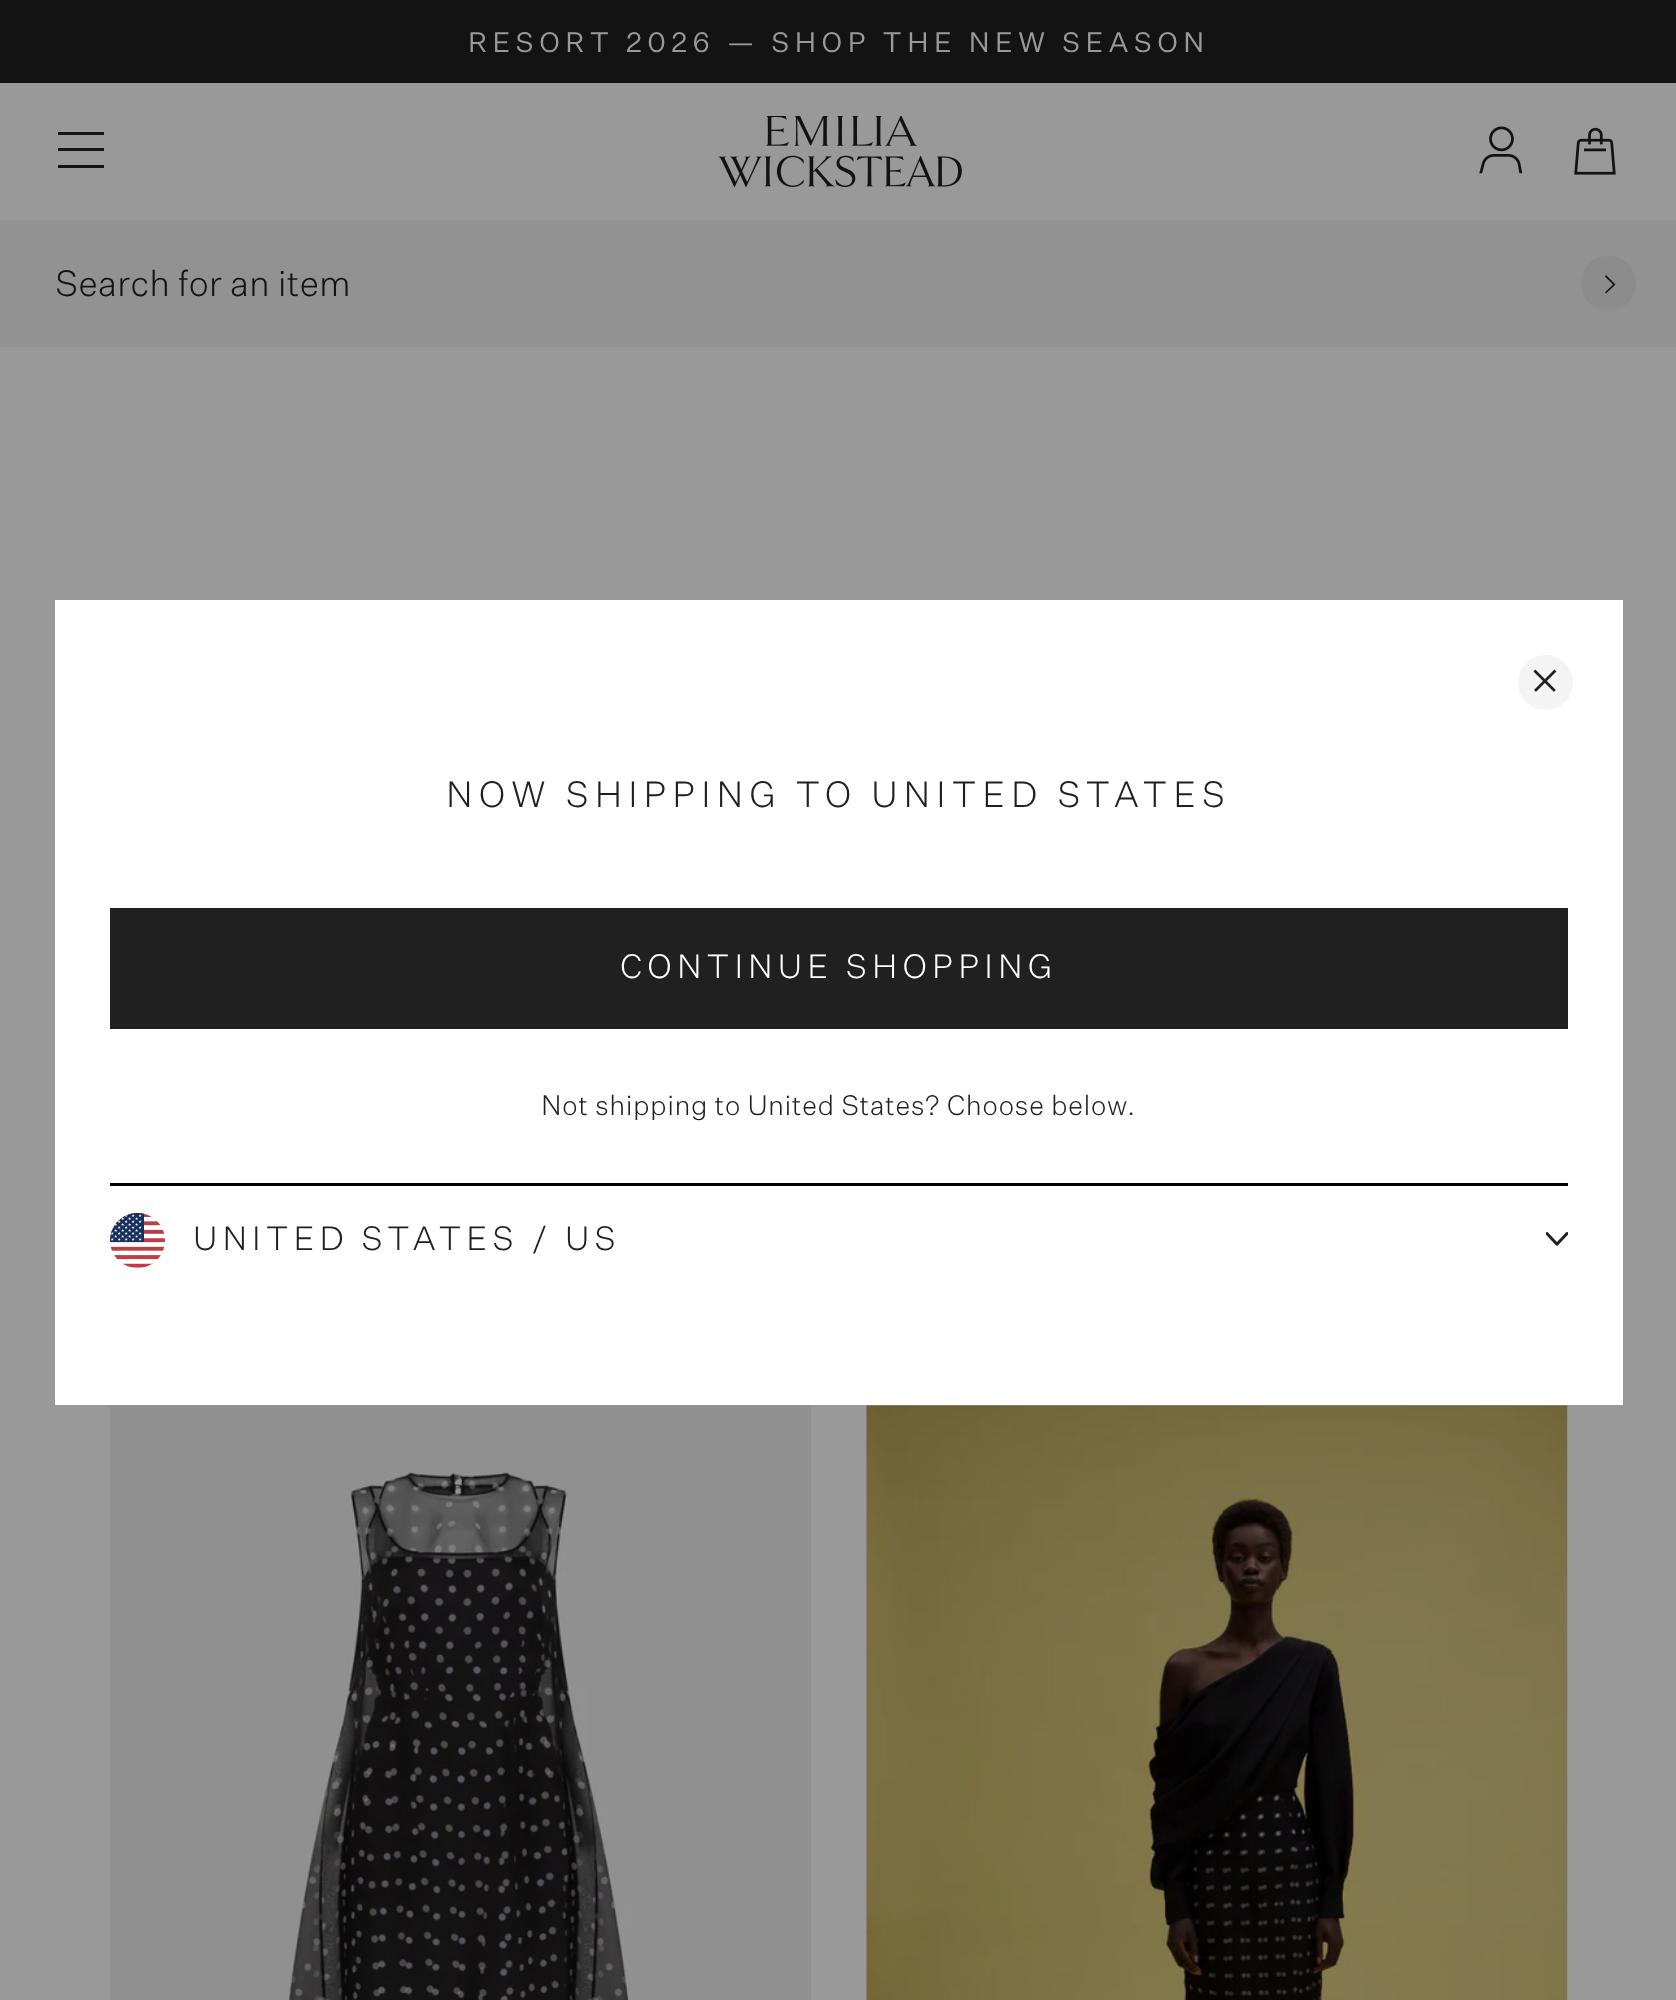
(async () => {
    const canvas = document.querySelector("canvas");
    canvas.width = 1676;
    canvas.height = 2000;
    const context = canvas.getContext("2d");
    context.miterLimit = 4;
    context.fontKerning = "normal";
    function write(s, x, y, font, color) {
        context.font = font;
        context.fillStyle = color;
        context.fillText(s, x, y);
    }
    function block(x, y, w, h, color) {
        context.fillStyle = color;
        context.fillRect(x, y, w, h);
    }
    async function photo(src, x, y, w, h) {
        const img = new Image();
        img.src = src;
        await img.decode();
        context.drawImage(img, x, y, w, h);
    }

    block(0, 0, 1676, 2000, "rgb(153, 153, 153)");
    block(0, 0, 1676, 83, "rgb(19, 19, 19)");
    context.letterSpacing = "5.5px";
    write("RESORT 2026 — SHOP THE NEW SEASON", 468, 52, "27.5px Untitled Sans", "rgb(153, 153, 153)");
    context.fillStyle = "rgb(19, 19, 19)";
    context.beginPath();
    context.moveTo(58, 165);
    context.lineTo(104, 165);
    context.lineTo(104, 168);
    context.lineTo(58, 168);
    context.closePath();
    context.moveTo(58, 132);
    context.lineTo(104, 132);
    context.lineTo(104, 135);
    context.lineTo(58, 135);
    context.closePath();
    context.moveTo(58, 148);
    context.lineTo(104, 148);
    context.lineTo(104, 151);
    context.lineTo(58, 151);
    context.closePath();
    context.fill("evenodd");
    await photo("media/1.png", 718, 116, 244, 71);
    await photo("media/2.png", 1479, 126, 44, 48);
    await photo("media/3.png", 1574, 127, 42, 48);
    block(0, 220, 1676, 127, "rgb(146, 146, 146)");
    context.letterSpacing = "0px";
    write("Search for an item", 55, 296, "300 35.75px Untitled Sans", "rgb(19, 19, 19)");
    context.fillStyle = "rgb(140, 140, 140)";
    context.beginPath();
    context.arc(1608.5, 283.5, 27.5, 0, Math.PI * 2);
    context.fill();
    context.fillStyle = "rgb(19, 19, 19)";
    context.beginPath();
    context.moveTo(1606, 293.5);
    context.lineTo(1605, 292.5);
    context.lineTo(1613, 284.5);
    context.lineTo(1605, 276.5);
    context.lineTo(1606, 275);
    context.lineTo(1615.5, 284.5);
    context.closePath();
    context.fill();
    block(55, 600, 1568, 805, "rgb(255, 255, 255)");
    context.fillStyle = "rgb(244, 244, 244)";
    context.beginPath();
    context.arc(1545.5, 682.5, 27.5, 0, Math.PI * 2);
    context.fill();
    await photo("media/4.png", 1533, 669, 24, 23);
    context.letterSpacing = "6.05px";
    write("NOW SHIPPING TO UNITED STATES", 446, 807, "300 35.75px Untitled Sans", "rgb(32, 32, 32)");
    block(110, 908, 1458, 121, "rgb(32, 32, 32)");
    context.letterSpacing = "5.1px";
    write("CONTINUE SHOPPING", 620, 978, "300 33px Untitled Sans", "rgb(255, 255, 255)");
    context.letterSpacing = "0.45px";
    write("Not shipping to United States? Choose below.", 541, 1115, "300 27.5px Untitled Sans", "rgb(32, 32, 32)");
    block(110, 1183, 1458, 3, "rgb(0, 0, 0)");
    await photo("media/5.png", 110, 1213, 55, 55);
    context.letterSpacing = "5.1px";
    write("UNITED STATES / US", 193, 1250, "300 33px Untitled Sans", "rgb(32, 32, 32)");
    await photo("media/6.png", 1546, 1232, 22, 14);
    await photo("media/7.png", 110, 1405, 701, 595);
    await photo("media/8.png", 866, 1405, 702, 595);
})();
